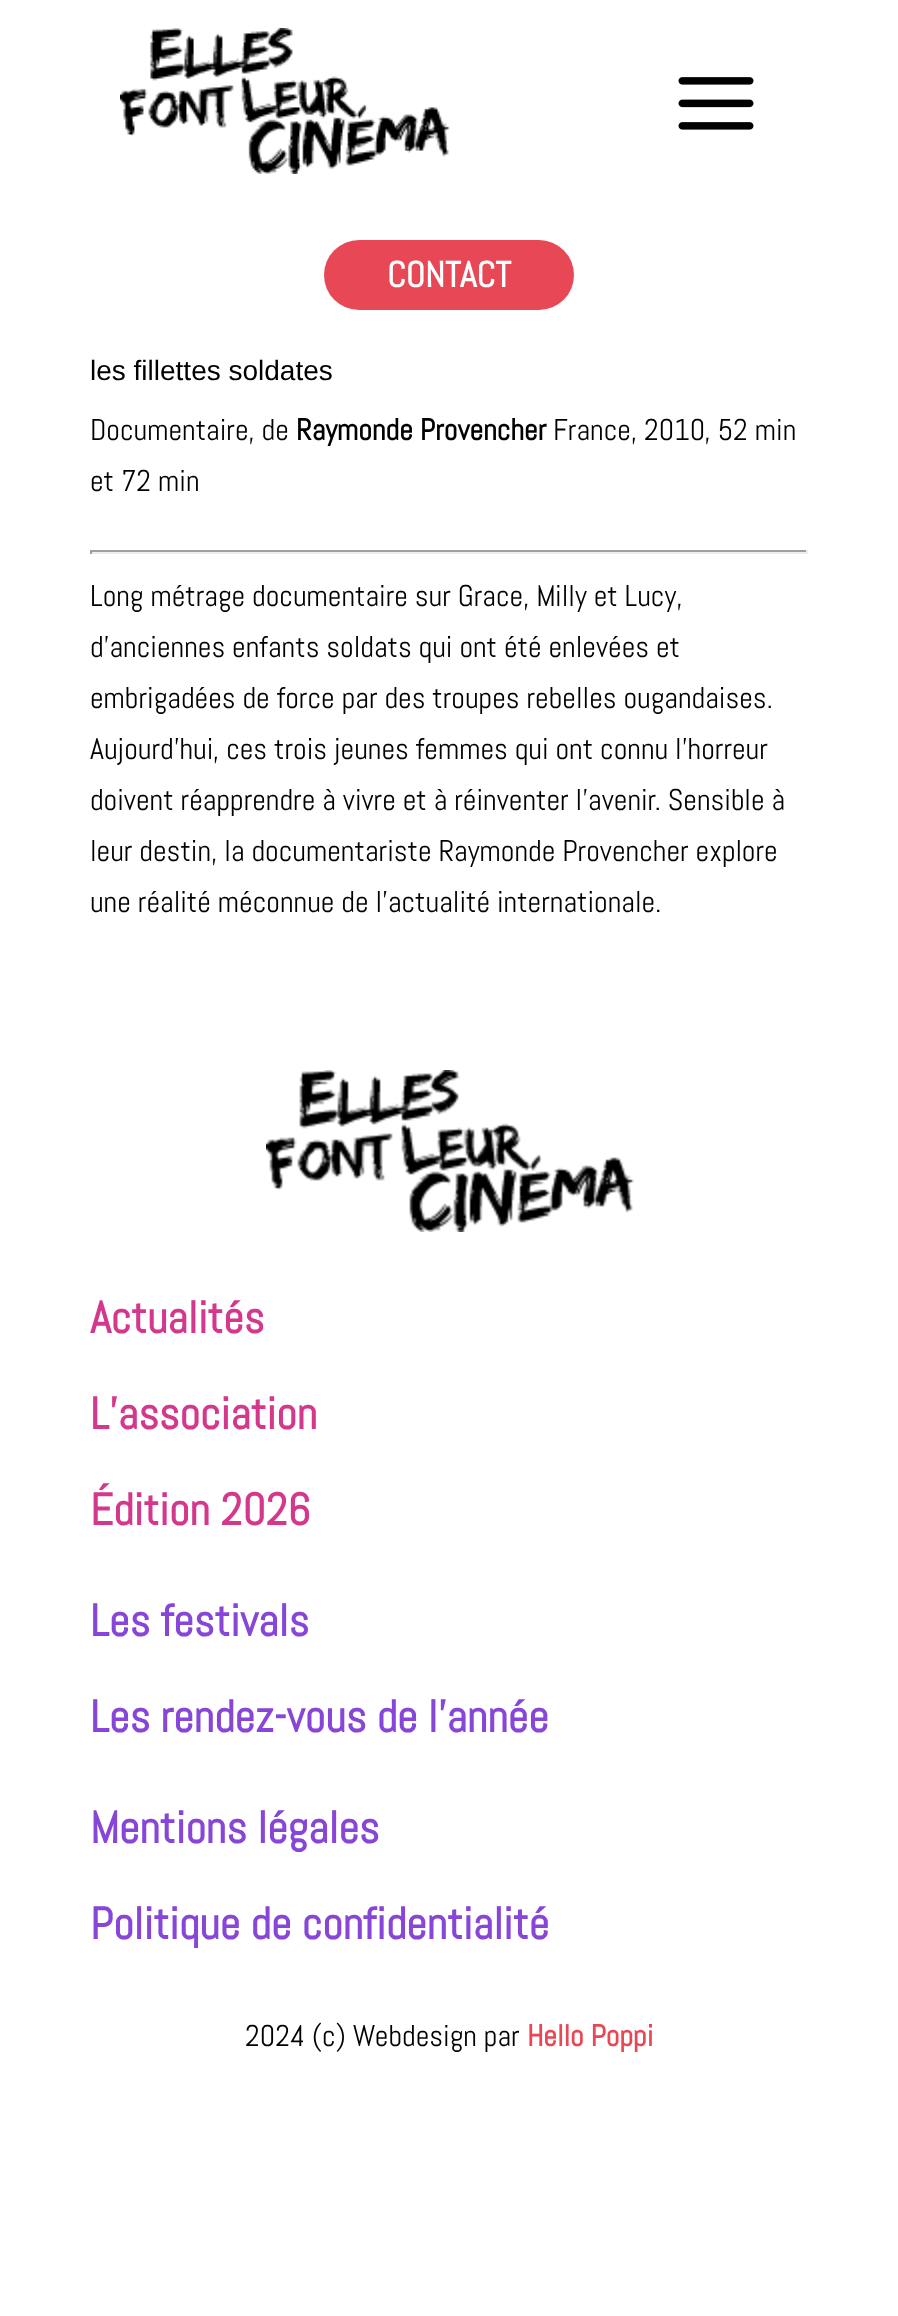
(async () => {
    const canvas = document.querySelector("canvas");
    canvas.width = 898;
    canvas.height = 2316;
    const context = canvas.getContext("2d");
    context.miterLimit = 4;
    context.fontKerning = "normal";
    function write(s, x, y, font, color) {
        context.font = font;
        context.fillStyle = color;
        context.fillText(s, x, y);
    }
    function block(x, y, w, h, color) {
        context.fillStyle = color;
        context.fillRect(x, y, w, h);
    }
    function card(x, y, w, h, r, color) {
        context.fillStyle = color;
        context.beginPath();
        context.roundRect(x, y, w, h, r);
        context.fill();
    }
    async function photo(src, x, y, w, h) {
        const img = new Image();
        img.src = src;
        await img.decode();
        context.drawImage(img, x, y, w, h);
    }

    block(0, 0, 898, 2316, "rgb(255, 255, 255)");
    await photo("media/1.png", 120, 28, 330, 146);
    await photo("media/2.png", 678, 77, 76, 53);
    card(324, 240, 250, 70, 35, "rgb(232, 72, 85)");
    write("CONTACT", 387, 287, "bold 36px Abel", "rgb(255, 255, 255)");
    write("les fillettes soldates", 90, 380, "28px Liberation Sans", "rgb(0, 0, 0)");
    write("Documentaire, de", 90, 440, "30px Abel", "rgb(0, 0, 0)");
    write("Raymonde Provencher", 296, 440, "bold 30px Abel", "rgb(0, 0, 0)");
    write("France, 2010, 52 min", 553, 440, "30px Abel", "rgb(0, 0, 0)");
    write("et 72 min", 90, 491, "30px Abel", "rgb(0, 0, 0)");
    block(90, 550, 718, 2, "rgb(159, 159, 159)");
    block(806, 550, 2, 4, "rgb(238, 238, 238)");
    block(90, 552, 718, 2, "rgb(238, 238, 238)");
    block(90, 550, 2, 4, "rgb(159, 159, 159)");
    write("Long métrage documentaire sur Grace, Milly et Lucy,", 90, 606, "30px Abel", "rgb(0, 0, 0)");
    write("d’anciennes enfants soldats qui ont été enlevées et", 90, 657, "30px Abel", "rgb(0, 0, 0)");
    write("embrigadées de force par des troupes rebelles ougandaises.", 90, 708, "30px Abel", "rgb(0, 0, 0)");
    write("Aujourd’hui, ces trois jeunes femmes qui ont connu l’horreur", 90, 759, "30px Abel", "rgb(0, 0, 0)");
    write("doivent réapprendre à vivre et à réinventer l’avenir. Sensible à", 90, 810, "30px Abel", "rgb(0, 0, 0)");
    write("leur destin, la documentariste Raymonde Provencher explore", 90, 861, "30px Abel", "rgb(0, 0, 0)");
    write("une réalité méconnue de l’actualité internationale.", 90, 912, "30px Abel", "rgb(0, 0, 0)");
    await photo("media/3.png", 266, 1070, 368, 162);
    write("Actualités", 90, 1333, "bold 45px Abel", "rgb(212, 56, 140)");
    write("L’association", 90, 1429, "bold 45px Abel", "rgb(212, 56, 140)");
    write("Édition 2026", 90, 1525, "bold 45px Abel", "rgb(212, 56, 140)");
    write("Les festivals", 90, 1636, "bold 45px Abel", "rgb(136, 70, 216)");
    write("Les rendez-vous de l’année", 90, 1732, "bold 45px Abel", "rgb(136, 70, 216)");
    write("Mentions légales", 90, 1843, "bold 45px Abel", "rgb(136, 70, 216)");
    write("Politique de confidentialité", 90, 1939, "bold 45px Abel", "rgb(136, 70, 216)");
    write("2024 (c) Webdesign par", 245, 2046, "30px Abel", "rgb(0, 0, 0)");
    write("Hello Poppi", 527, 2046, "bold 30px Abel", "rgb(232, 72, 85)");
})();
